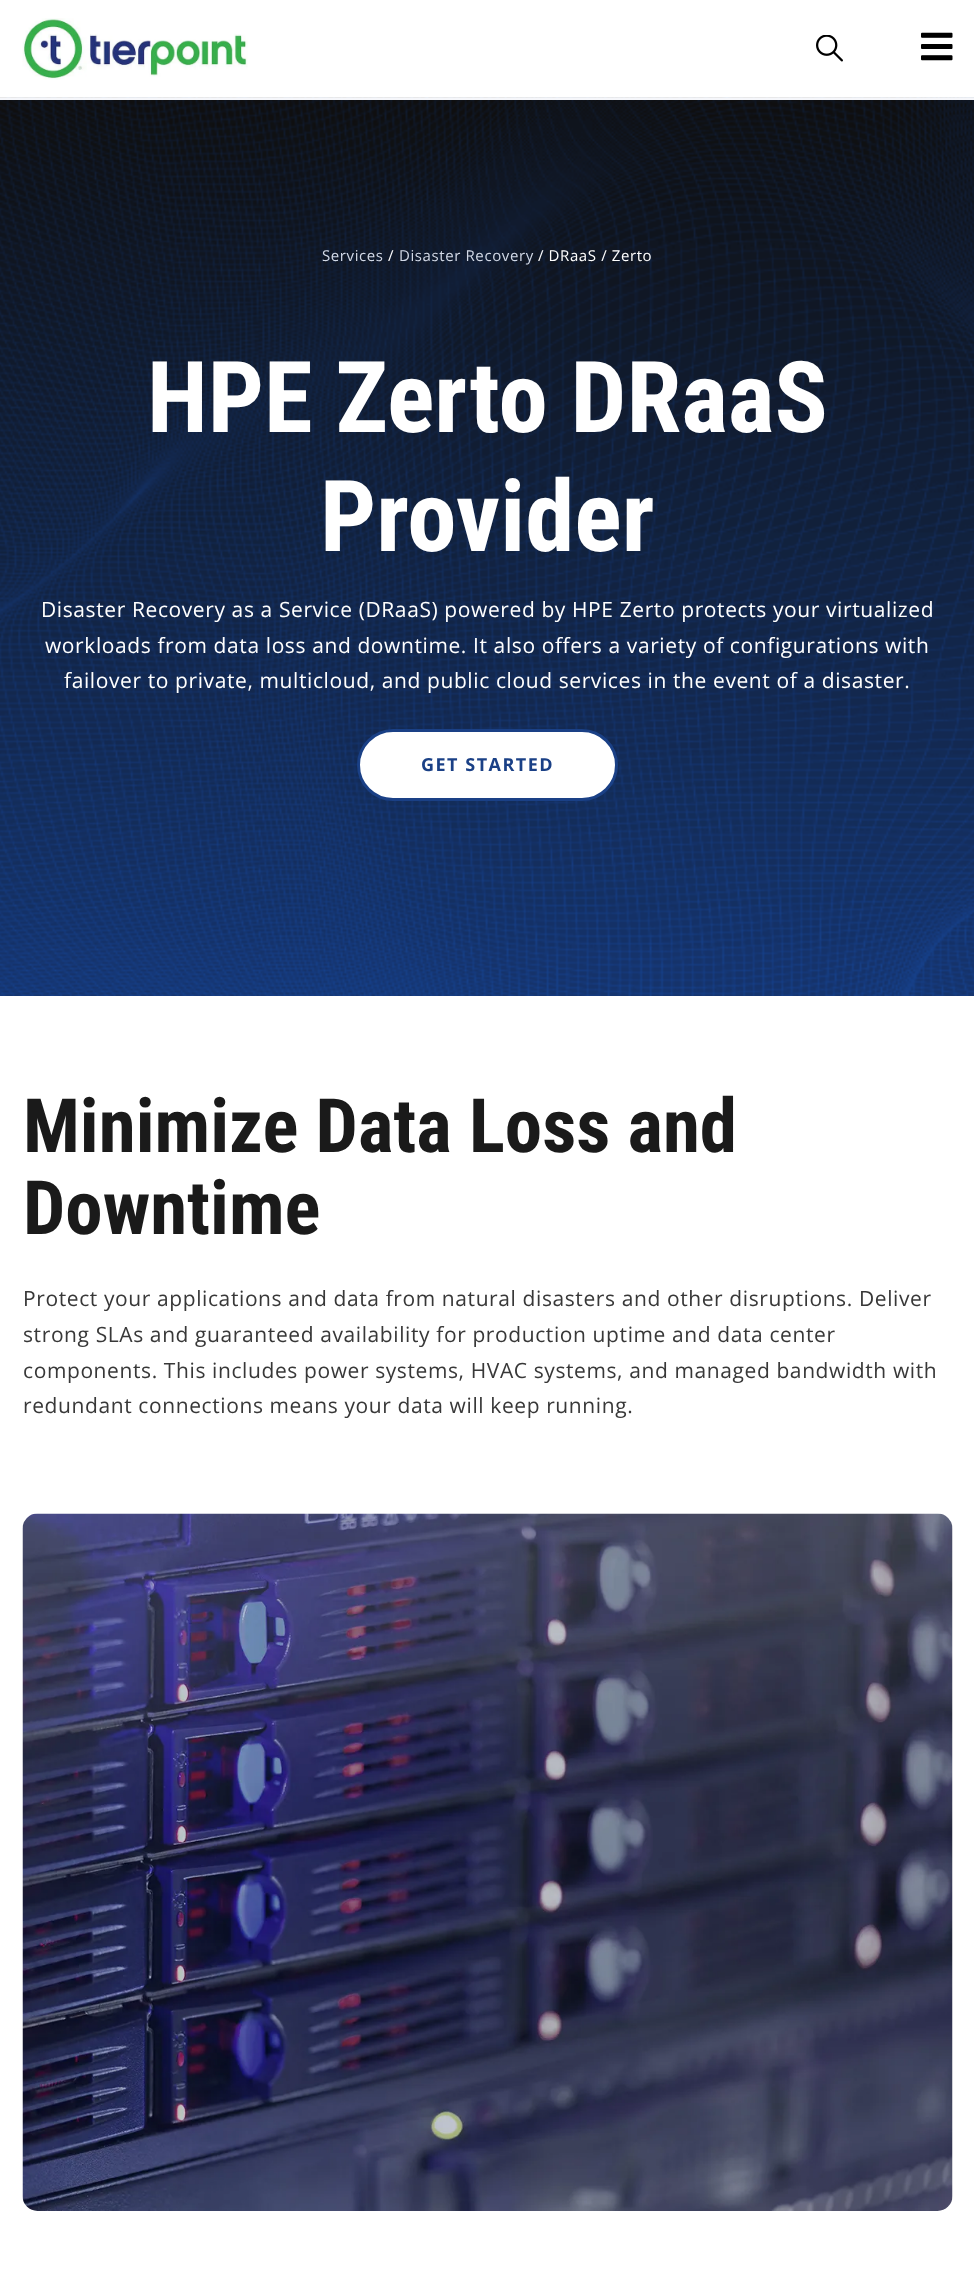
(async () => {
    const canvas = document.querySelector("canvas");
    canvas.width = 974;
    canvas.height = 2278;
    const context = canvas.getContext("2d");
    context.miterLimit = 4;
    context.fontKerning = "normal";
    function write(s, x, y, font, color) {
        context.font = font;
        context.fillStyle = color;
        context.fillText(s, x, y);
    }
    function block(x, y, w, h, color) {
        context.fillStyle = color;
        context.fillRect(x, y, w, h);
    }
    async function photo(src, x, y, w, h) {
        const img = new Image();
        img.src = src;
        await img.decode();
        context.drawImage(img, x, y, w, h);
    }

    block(0, 0, 974, 2278, "rgb(255, 255, 255)");
    await photo("media/1.png", 22, 18, 226, 62);
    await photo("media/2.png", 816, 35, 27, 27);
    await photo("media/3.png", 921, 32, 32, 29);
    await photo("media/4.png", 0, 97, 974, 899);
    block(0, 98, 974, 2, "rgb(245, 246, 250)");
    context.letterSpacing = "0.6px";
    write("Services", 322, 261, "15px Open Sans", "rgb(210, 217, 231)");
    write("/", 388, 261, "15px Open Sans", "rgb(255, 255, 255)");
    write("Disaster Recovery", 399, 261, "15px Open Sans", "rgb(210, 217, 231)");
    write("/ DRaaS / Zerto", 538, 261, "15px Open Sans", "rgb(255, 255, 255)");
    context.letterSpacing = "0px";
    write("HPE Zerto DRaaS", 147, 432, "bold 99px Roboto Condensed", "rgb(255, 255, 255)");
    write("Provider", 320, 551, "bold 99px Roboto Condensed", "rgb(255, 255, 255)");
    context.letterSpacing = "0.6px";
    write("Disaster Recovery as a Service (DRaaS) powered by HPE Zerto protects your virtualized", 41, 617, "21px Open Sans", "rgb(255, 255, 255)");
    write("workloads from data loss and downtime. It also offers a variety of configurations with", 45, 653, "21px Open Sans", "rgb(255, 255, 255)");
    write("failover to private, multicloud, and public cloud services in the event of a disaster.", 64, 688, "21px Open Sans", "rgb(255, 255, 255)");
    context.beginPath();
    context.roundRect(358.5, 730.5, 258, 69, 34.5);
    context.fill();
    context.strokeStyle = "rgb(26, 64, 134)";
    context.lineWidth = 3;
    context.stroke();
    context.letterSpacing = "1.5px";
    write("GET STARTED", 421, 771, "bold 18px Open Sans", "rgb(26, 64, 134)");
    context.letterSpacing = "0px";
    write("Minimize Data Loss and", 23, 1152, "bold 75px Roboto Condensed", "rgb(26, 26, 26)");
    write("Downtime", 23, 1234, "bold 75px Roboto Condensed", "rgb(26, 26, 26)");
    context.letterSpacing = "0.6px";
    write("Protect your applications and data from natural disasters and other disruptions. Deliver", 23, 1306, "21px Open Sans", "rgb(56, 56, 56)");
    write("strong SLAs and guaranteed availability for production uptime and data center", 23, 1342, "21px Open Sans", "rgb(56, 56, 56)");
    write("components. This includes power systems, HVAC systems, and managed bandwidth with", 23, 1378, "21px Open Sans", "rgb(56, 56, 56)");
    write("redundant connections means your data will keep running.", 23, 1413, "21px Open Sans", "rgb(56, 56, 56)");
    await photo("media/5.png", 22, 1513, 931, 698);
})();
